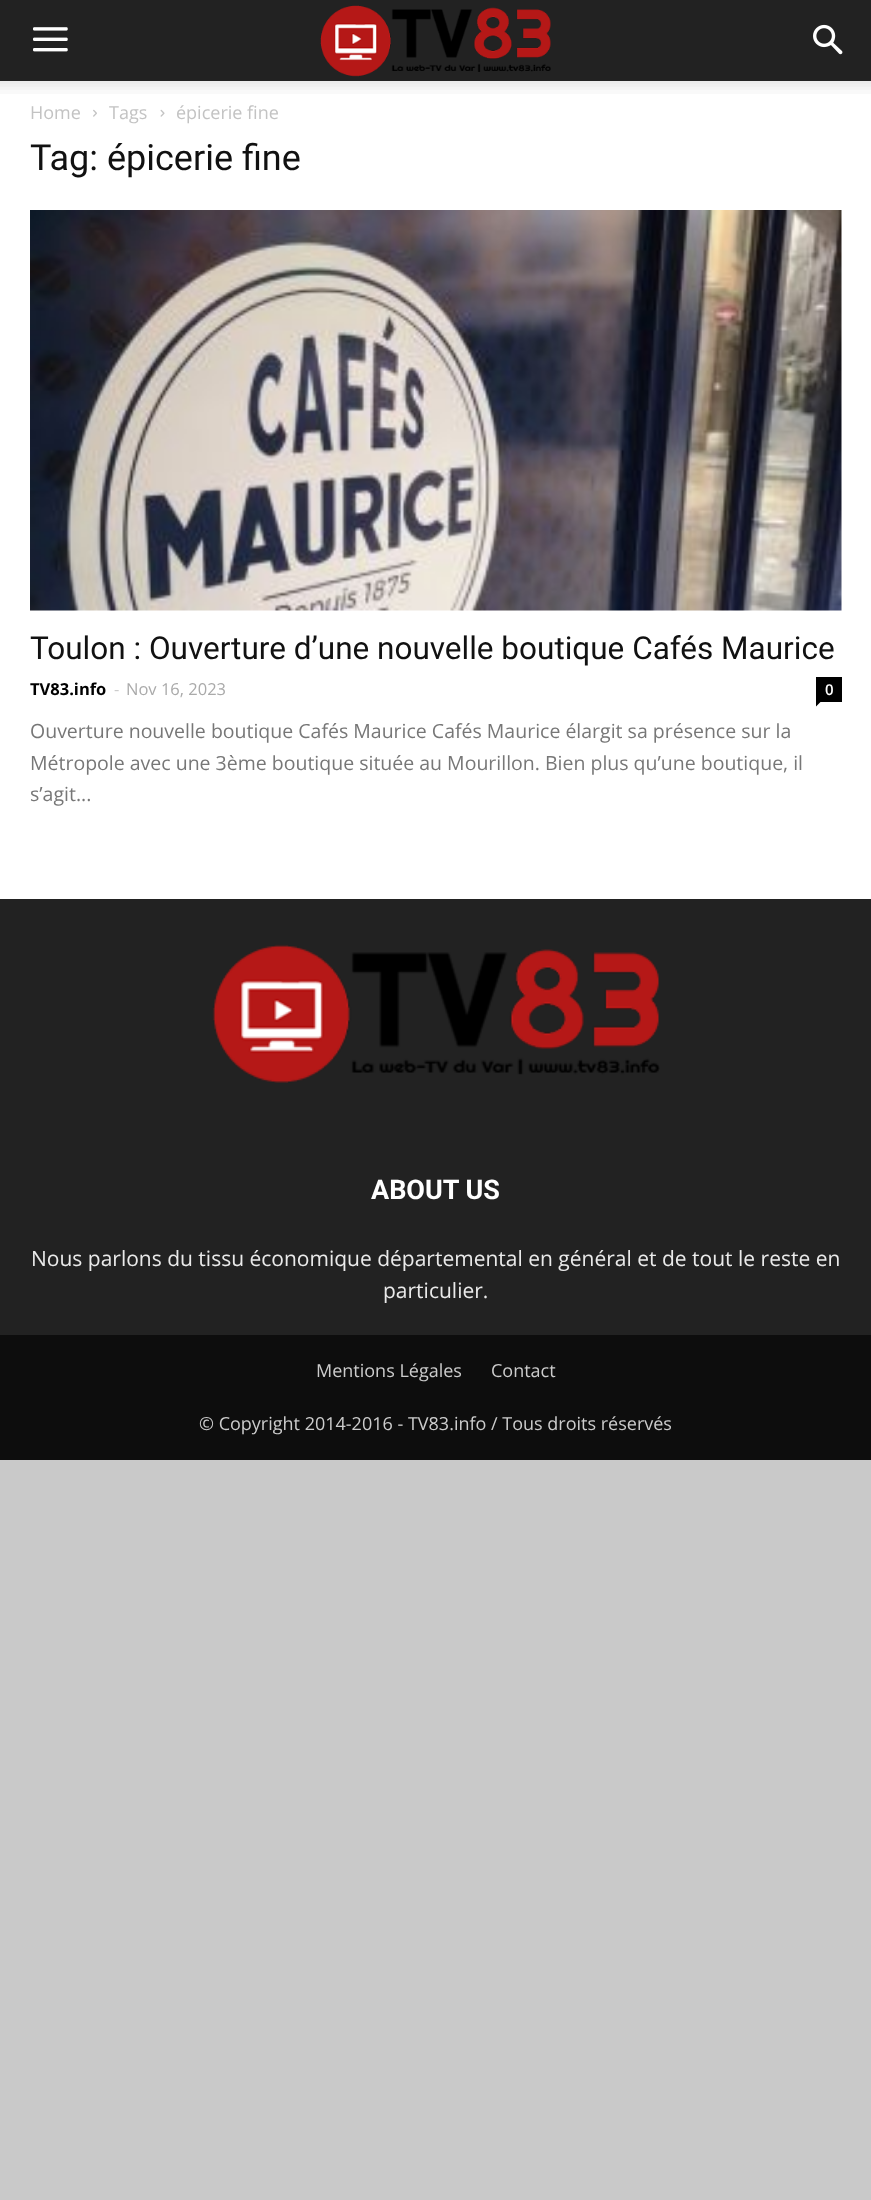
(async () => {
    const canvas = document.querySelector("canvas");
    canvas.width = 871;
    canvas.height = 2200;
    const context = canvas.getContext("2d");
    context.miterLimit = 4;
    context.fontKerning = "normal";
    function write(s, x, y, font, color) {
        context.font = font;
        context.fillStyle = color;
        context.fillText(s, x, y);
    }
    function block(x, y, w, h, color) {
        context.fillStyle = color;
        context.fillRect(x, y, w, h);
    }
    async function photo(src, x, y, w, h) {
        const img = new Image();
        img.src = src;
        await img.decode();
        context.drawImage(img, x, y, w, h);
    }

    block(0, 0, 871, 2200, "rgb(201, 201, 201)");
    block(0, 0, 871, 81, "rgb(34, 34, 34)");
    await photo("media/1.png", 33, 27, 35, 25);
    await photo("media/2.png", 320, 5, 231, 72);
    await photo("media/3.png", 813, 24, 30, 31);
    block(0, 81, 871, 818, "rgb(255, 255, 255)");
    await photo("media/4.png", 0, 81, 871, 13);
    write("Home", 30, 119, "18px Open Sans", "rgb(195, 195, 195)");
    await photo("media/5.png", 93, 109, 4, 8);
    write("Tags", 109, 119, "18px Open Sans", "rgb(195, 195, 195)");
    await photo("media/6.png", 160, 109, 5, 8);
    write("épicerie fine", 176, 119, "18px Open Sans", "rgb(195, 195, 195)");
    write("Tag: épicerie fine", 30, 170, "36px Roboto", "rgb(17, 17, 17)");
    await photo("media/7.png", 30, 210, 812, 401);
    write("Toulon : Ouverture d’une nouvelle boutique Cafés Maurice", 30, 659, "31.5px Roboto", "rgb(17, 17, 17)");
    write("TV83.info", 30, 695, "bold 16.5px Open Sans", "rgb(0, 0, 0)");
    write("-", 114, 695, "16.5px Open Sans", "rgb(204, 204, 204)");
    write("Nov 16, 2023", 126, 695, "16.5px Open Sans", "rgb(170, 170, 170)");
    block(816, 677, 26, 25, "rgb(0, 0, 0)");
    write("0", 825, 695, "600 15px Open Sans", "rgb(255, 255, 255)");
    context.fillStyle = "rgb(0, 0, 0)";
    context.beginPath();
    context.moveTo(816, 702);
    context.lineTo(820.5, 702);
    context.lineTo(816, 706.5);
    context.closePath();
    context.fill();
    write("Ouverture nouvelle boutique Cafés Maurice Cafés Maurice élargit sa présence sur la", 30, 738, "19.5px Open Sans", "rgb(119, 119, 119)");
    write("Métropole avec une 3ème boutique située au Mourillon. Bien plus qu’une boutique, il", 30, 770, "19.5px Open Sans", "rgb(119, 119, 119)");
    write("s’agit...", 30, 801, "19.5px Open Sans", "rgb(119, 119, 119)");
    block(0, 899, 871, 436, "rgb(34, 34, 34)");
    await photo("media/8.png", 212, 944, 448, 139);
    write("ABOUT US", 371, 1199, "bold 27px Roboto", "rgb(255, 255, 255)");
    write("Nous parlons du tissu économique départemental en général et de tout le reste en", 31, 1266, "21px Open Sans", "rgb(234, 234, 234)");
    write("particulier.", 383, 1298, "21px Open Sans", "rgb(234, 234, 234)");
    block(0, 1335, 871, 125, "rgb(13, 13, 13)");
    write("Mentions Légales", 316, 1377, "18px Open Sans", "rgb(204, 204, 204)");
    write("Contact", 491, 1377, "18px Open Sans", "rgb(204, 204, 204)");
    write("© Copyright 2014-2016 - TV83.info / Tous droits réservés", 199, 1430, "18px Open Sans", "rgb(204, 204, 204)");
})();
